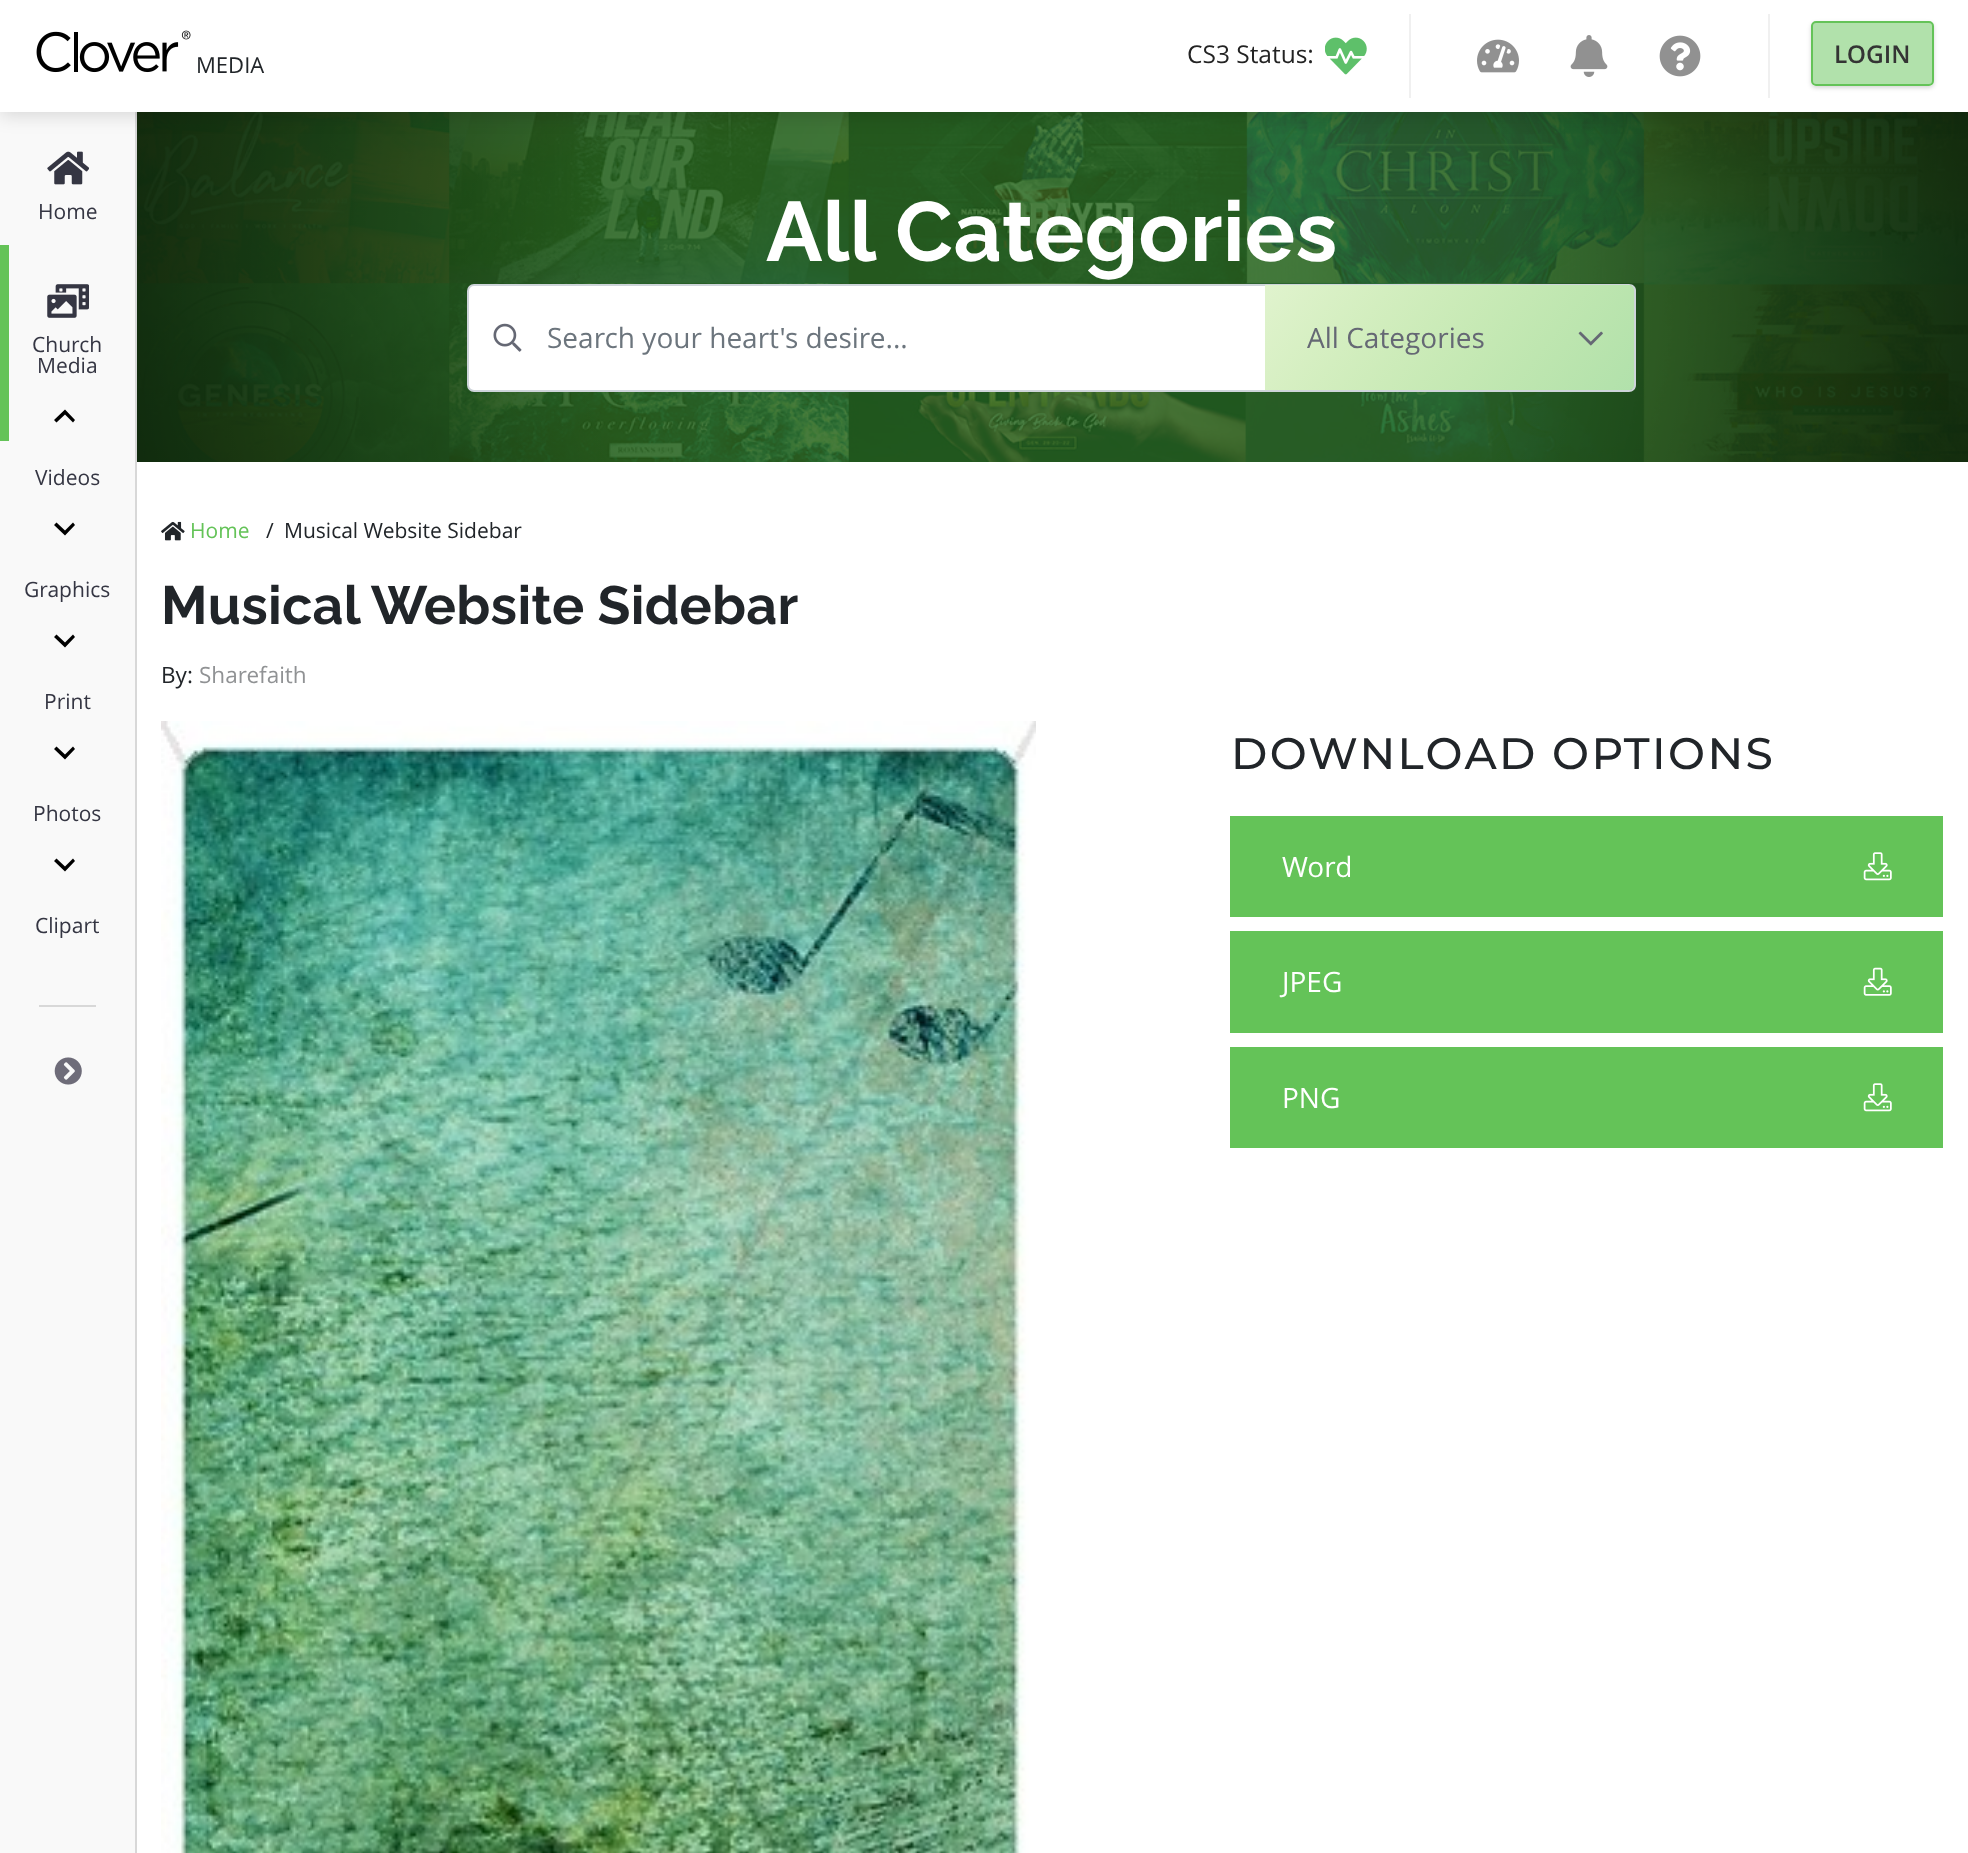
(async () => {
    const canvas = document.querySelector("canvas");
    canvas.width = 1968;
    canvas.height = 1853;
    const context = canvas.getContext("2d");
    context.miterLimit = 4;
    context.fontKerning = "normal";
    function write(s, x, y, font, color) {
        context.font = font;
        context.fillStyle = color;
        context.fillText(s, x, y);
    }
    function block(x, y, w, h, color) {
        context.fillStyle = color;
        context.fillRect(x, y, w, h);
    }
    async function photo(src, x, y, w, h) {
        const img = new Image();
        img.src = src;
        await img.decode();
        context.drawImage(img, x, y, w, h);
    }
    let gradient;

    block(0, 0, 1968, 1853, "rgb(255, 255, 255)");
    block(0, 112, 135, 1741, "rgb(249, 249, 249)");
    block(135, 112, 2, 1741, "rgb(216, 216, 216)");
    await photo("media/9.png", 137, 112, 1831, 350);
    context.letterSpacing = "0.5px";
    write("All Categories", 766, 261, "bold 84px Raleway", "rgb(255, 255, 255)");
    gradient = context.createRadialGradient(1052, 287, 0, 1052, 287, 1400);
    gradient.addColorStop(0.33, "rgba(0, 0, 0, 0)");
    gradient.addColorStop(1, "rgb(0, 0, 0)");
    context.fillStyle = gradient;
    context.fillRect(137, 112, 1831, 350);
    context.fillStyle = "rgba(0, 0, 0, 0.13)";
    context.filter = "blur(9px)";
    context.beginPath();
    context.rect(0, 4, 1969, 112);
    context.fill();
    context.filter = "none";
    block(0, 0, 1968, 112, "rgb(255, 255, 255)");
    await photo("media/1.png", 36, 30, 155, 43);
    context.letterSpacing = "0px";
    write("MEDIA", 196, 73, "22px Open Sans", "rgb(33, 37, 41)");
    write("CS3 Status:", 1187, 63, "24.5px Open Sans", "rgb(35, 35, 35)");
    await photo("media/2.png", 1325, 37, 42, 38);
    block(1409, 14, 2, 84, "rgb(240, 240, 240)");
    await photo("media/3.png", 1477, 39, 42, 34);
    await photo("media/4.png", 1570, 35, 38, 42);
    await photo("media/5.png", 1659, 35, 42, 42);
    block(1768, 14, 2, 84, "rgb(240, 240, 240)");
    context.save();
    context.beginPath();
    context.moveTo(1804, 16);
    context.lineTo(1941, 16);
    context.lineTo(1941, 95);
    context.lineTo(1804, 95);
    context.closePath();
    context.moveTo(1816, 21);
    context.lineTo(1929, 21);
    context.bezierCurveTo(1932, 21, 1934, 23, 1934, 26);
    context.lineTo(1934, 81);
    context.bezierCurveTo(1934, 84, 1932, 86, 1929, 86);
    context.lineTo(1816, 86);
    context.bezierCurveTo(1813, 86, 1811, 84, 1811, 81);
    context.lineTo(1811, 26);
    context.bezierCurveTo(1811, 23, 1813, 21, 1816, 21);
    context.closePath();
    context.clip("evenodd");
    context.fillStyle = "rgba(0, 0, 0, 0.16)";
    context.filter = "blur(2px)";
    context.beginPath();
    context.roundRect(1811, 23, 123, 65, 5);
    context.fill();
    context.filter = "none";
    context.restore();
    context.fillStyle = "rgba(100, 195, 88, 0.5)";
    context.beginPath();
    context.roundRect(1812, 22, 121, 63, 4);
    context.fill();
    context.strokeStyle = "rgb(100, 195, 88)";
    context.lineWidth = 2;
    context.stroke();
    write("LOGIN", 1834, 63, "600 24.5px Open Sans", "rgb(52, 52, 52)");
    await photo("media/6.png", 47, 151, 42, 34);
    write("Home", 38, 219, "21px Open Sans", "rgb(53, 54, 67)");
    block(0, 245, 9, 196, "rgb(100, 195, 88)");
    await photo("media/7.png", 47, 284, 42, 34);
    write("Church", 32, 352, "21px Open Sans", "rgb(53, 54, 67)");
    write("Media", 37, 373, "21px Open Sans", "rgb(53, 54, 67)");
    context.fillStyle = "rgb(0, 0, 0)";
    context.beginPath();
    context.moveTo(56.5, 422.5);
    context.lineTo(65, 414.5);
    context.lineTo(73, 422.5);
    context.lineTo(75, 420);
    context.lineTo(65, 409.5);
    context.lineTo(54, 420);
    context.closePath();
    context.fill();
    write("Videos", 35, 485, "21px Open Sans", "rgb(53, 54, 67)");
    context.fillStyle = "rgb(0, 0, 0)";
    context.beginPath();
    context.moveTo(56.5, 522.5);
    context.lineTo(65, 530.5);
    context.lineTo(73, 522.5);
    context.lineTo(75, 525);
    context.lineTo(65, 535.5);
    context.lineTo(54, 525);
    context.closePath();
    context.fill();
    write("Graphics", 24, 597, "21px Open Sans", "rgb(53, 54, 67)");
    context.fillStyle = "rgb(0, 0, 0)";
    context.beginPath();
    context.moveTo(56.5, 634.5);
    context.lineTo(65, 642.5);
    context.lineTo(73, 634.5);
    context.lineTo(75, 637);
    context.lineTo(65, 647.5);
    context.lineTo(54, 637);
    context.closePath();
    context.fill();
    write("Print", 44, 709, "21px Open Sans", "rgb(53, 54, 67)");
    context.fillStyle = "rgb(0, 0, 0)";
    context.beginPath();
    context.moveTo(56.5, 746.5);
    context.lineTo(65, 754.5);
    context.lineTo(73, 746.5);
    context.lineTo(75, 749);
    context.lineTo(65, 759.5);
    context.lineTo(54, 749);
    context.closePath();
    context.fill();
    write("Photos", 33, 821, "21px Open Sans", "rgb(53, 54, 67)");
    context.fillStyle = "rgb(0, 0, 0)";
    context.beginPath();
    context.moveTo(56.5, 858.5);
    context.lineTo(65, 866.5);
    context.lineTo(73, 858.5);
    context.lineTo(75, 861);
    context.lineTo(65, 871.5);
    context.lineTo(54, 861);
    context.closePath();
    context.fill();
    write("Clipart", 35, 933, "21px Open Sans", "rgb(53, 54, 67)");
    block(39, 1005, 57, 2, "rgb(216, 216, 216)");
    await photo("media/8.png", 54, 1057, 28, 28);
    context.fillStyle = "rgb(255, 255, 255)";
    context.beginPath();
    context.roundRect(468, 285, 798, 106, [6, 0, 0, 6]);
    context.fill();
    context.strokeStyle = "rgb(206, 212, 218)";
    context.stroke();
    await photo("media/10.png", 493, 323, 29, 29);
    write("Search your heart's desire...", 547, 348, "28px Open Sans", "rgb(108, 117, 125)");
    context.fillStyle = "rgb(255, 255, 255)";
    context.beginPath();
    context.roundRect(1265, 285, 370, 105, [0, 5, 5, 0]);
    context.fill();
    gradient = context.createLinearGradient(1307, 230, 1593, 446);
    gradient.addColorStop(0, "rgba(100, 195, 8, 0.2)");
    gradient.addColorStop(1, "rgba(100, 195, 88, 0.5)");
    context.fillStyle = gradient;
    context.beginPath();
    context.roundRect(1265, 285, 370, 105, [0, 5, 5, 0]);
    context.fill();
    context.fillStyle = "rgb(206, 212, 218)";
    context.beginPath();
    context.moveTo(1265, 284);
    context.lineTo(1629, 284);
    context.bezierCurveTo(1633, 284, 1636, 287, 1636, 290);
    context.lineTo(1636, 385);
    context.bezierCurveTo(1636, 389, 1633, 392, 1629, 392);
    context.lineTo(1265, 392);
    context.closePath();
    context.moveTo(1265, 285);
    context.lineTo(1629, 285);
    context.bezierCurveTo(1632, 285, 1634, 288, 1634, 290);
    context.lineTo(1634, 385);
    context.bezierCurveTo(1634, 388, 1632, 390, 1629, 390);
    context.lineTo(1265, 390);
    context.closePath();
    context.fill("evenodd");
    write("All Categories", 1307, 348, "28px Open Sans", "rgb(101, 104, 116)");
    await photo("media/11.png", 1578, 331, 25, 15);
    await photo("media/12.png", 161, 521, 24, 20);
    write("Home", 190, 538, "21px Open Sans", "rgb(100, 195, 88)");
    write("/", 266, 538, "21px Open Sans", "rgb(33, 37, 41)");
    write("Musical Website Sidebar", 284, 538, "21px Open Sans", "rgb(33, 37, 41)");
    context.letterSpacing = "0.25px";
    write("Musical Website Sidebar", 161, 624, "bold 53.75px Raleway", "rgb(33, 37, 41)");
    context.letterSpacing = "0px";
    write("By:", 161, 683, "22.5px Open Sans", "rgb(33, 37, 41)");
    write("Sharefaith", 199, 683, "22.5px Open Sans", "rgb(144, 146, 148)");
    await photo("media/13.png", 161, 721, 875, 1132);
    context.letterSpacing = "2.4px";
    write("DOWNLOAD OPTIONS", 1231, 769, "500 44px Montserrat", "rgb(33, 37, 41)");
    block(1230, 816, 713, 101, "rgb(100, 195, 88)");
    context.letterSpacing = "0px";
    write("Word", 1282, 877, "28px Open Sans", "rgb(255, 255, 255)");
    await photo("media/14.png", 1863, 852, 29, 29);
    block(1230, 931, 713, 102, "rgb(100, 195, 88)");
    write("JPEG", 1282, 992, "28px Open Sans", "rgb(255, 255, 255)");
    await photo("media/15.png", 1863, 967, 29, 29);
    block(1230, 1047, 713, 101, "rgb(100, 195, 88)");
    write("PNG", 1282, 1108, "28px Open Sans", "rgb(255, 255, 255)");
    await photo("media/14.png", 1863, 1083, 29, 29);
})();
